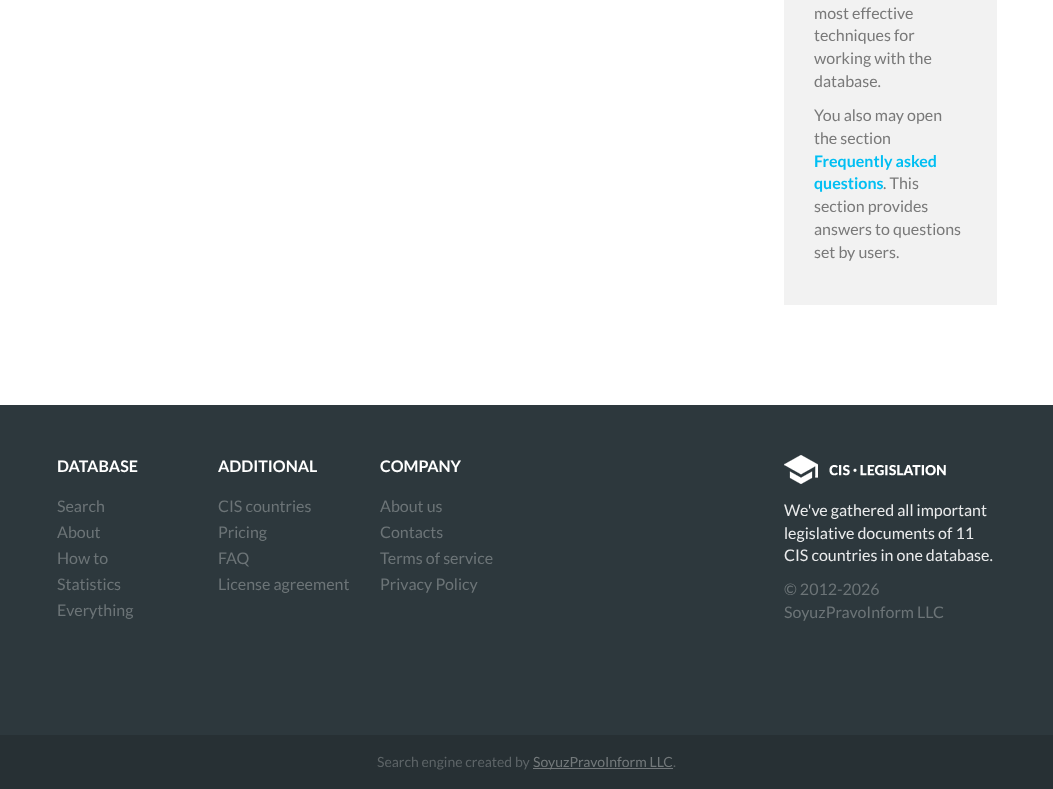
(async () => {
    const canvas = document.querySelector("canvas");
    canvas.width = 1053;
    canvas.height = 789;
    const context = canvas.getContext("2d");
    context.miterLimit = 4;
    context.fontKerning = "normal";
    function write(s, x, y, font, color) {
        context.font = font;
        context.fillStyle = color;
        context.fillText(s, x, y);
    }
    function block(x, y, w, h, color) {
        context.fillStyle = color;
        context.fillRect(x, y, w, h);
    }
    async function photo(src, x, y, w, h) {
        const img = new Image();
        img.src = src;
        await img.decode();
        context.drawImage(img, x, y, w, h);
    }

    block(0, 0, 1053, 789, "rgb(255, 255, 255)");
    block(784, 0, 213, 305, "rgb(242, 242, 242)");
    write("most effective", 814, 19, "16px Lato", "rgb(121, 121, 121)");
    write("techniques for", 814, 41, "16px Lato", "rgb(121, 121, 121)");
    write("working with the", 814, 64, "16px Lato", "rgb(121, 121, 121)");
    write("database.", 814, 87, "16px Lato", "rgb(121, 121, 121)");
    write("You also may open", 814, 121, "16px Lato", "rgb(121, 121, 121)");
    write("the section", 814, 144, "16px Lato", "rgb(121, 121, 121)");
    write("Frequently asked", 814, 167, "bold 16px Lato", "rgb(0, 191, 243)");
    write("questions", 814, 189, "bold 16px Lato", "rgb(0, 191, 243)");
    write(". This", 883, 189, "16px Lato", "rgb(121, 121, 121)");
    write("section provides", 814, 212, "16px Lato", "rgb(121, 121, 121)");
    write("answers to questions", 814, 235, "16px Lato", "rgb(121, 121, 121)");
    write("set by users.", 814, 258, "16px Lato", "rgb(121, 121, 121)");
    block(0, 405, 1053, 330, "rgb(45, 56, 61)");
    write("DATABASE", 57, 472, "bold 16px Lato", "rgb(255, 255, 255)");
    write("Search", 57, 512, "16px Lato", "rgb(108, 116, 119)");
    write("About", 57, 538, "16px Lato", "rgb(108, 116, 119)");
    write("How to", 57, 564, "16px Lato", "rgb(108, 116, 119)");
    write("Statistics", 57, 590, "16px Lato", "rgb(108, 116, 119)");
    write("Everything", 57, 616, "16px Lato", "rgb(108, 116, 119)");
    write("ADDITIONAL", 218, 472, "bold 16px Lato", "rgb(255, 255, 255)");
    write("CIS countries", 218, 512, "16px Lato", "rgb(108, 116, 119)");
    write("Pricing", 218, 538, "16px Lato", "rgb(108, 116, 119)");
    write("FAQ", 218, 564, "16px Lato", "rgb(108, 116, 119)");
    write("License agreement", 218, 590, "16px Lato", "rgb(108, 116, 119)");
    write("COMPANY", 380, 472, "bold 16px Lato", "rgb(255, 255, 255)");
    write("About us", 380, 512, "16px Lato", "rgb(108, 116, 119)");
    write("Contacts", 380, 538, "16px Lato", "rgb(108, 116, 119)");
    write("Terms of service", 380, 564, "16px Lato", "rgb(108, 116, 119)");
    write("Privacy Policy", 380, 590, "16px Lato", "rgb(108, 116, 119)");
    await photo("media/1.png", 784, 455, 162, 29);
    write("We've gathered all important", 784, 516, "16px Lato", "rgb(234, 235, 236)");
    write("legislative documents of 11", 784, 539, "16px Lato", "rgb(234, 235, 236)");
    write("CIS countries in one database.", 784, 561, "16px Lato", "rgb(234, 235, 236)");
    write("© 2012-2026", 784, 595, "16px Lato", "rgb(108, 116, 119)");
    write("SoyuzPravoInform LLC", 784, 618, "16px Lato", "rgb(108, 116, 119)");
    block(0, 735, 1053, 54, "rgb(39, 48, 52)");
    write("Search engine created by", 377, 767, "14px Lato", "rgb(93, 100, 103)");
    block(533, 768, 140, 1, "rgb(115, 120, 123)");
    write("SoyuzPravoInform LLC", 533, 767, "14px Lato", "rgb(115, 121, 123)");
    write(".", 673, 767, "14px Lato", "rgb(93, 100, 103)");
})();
